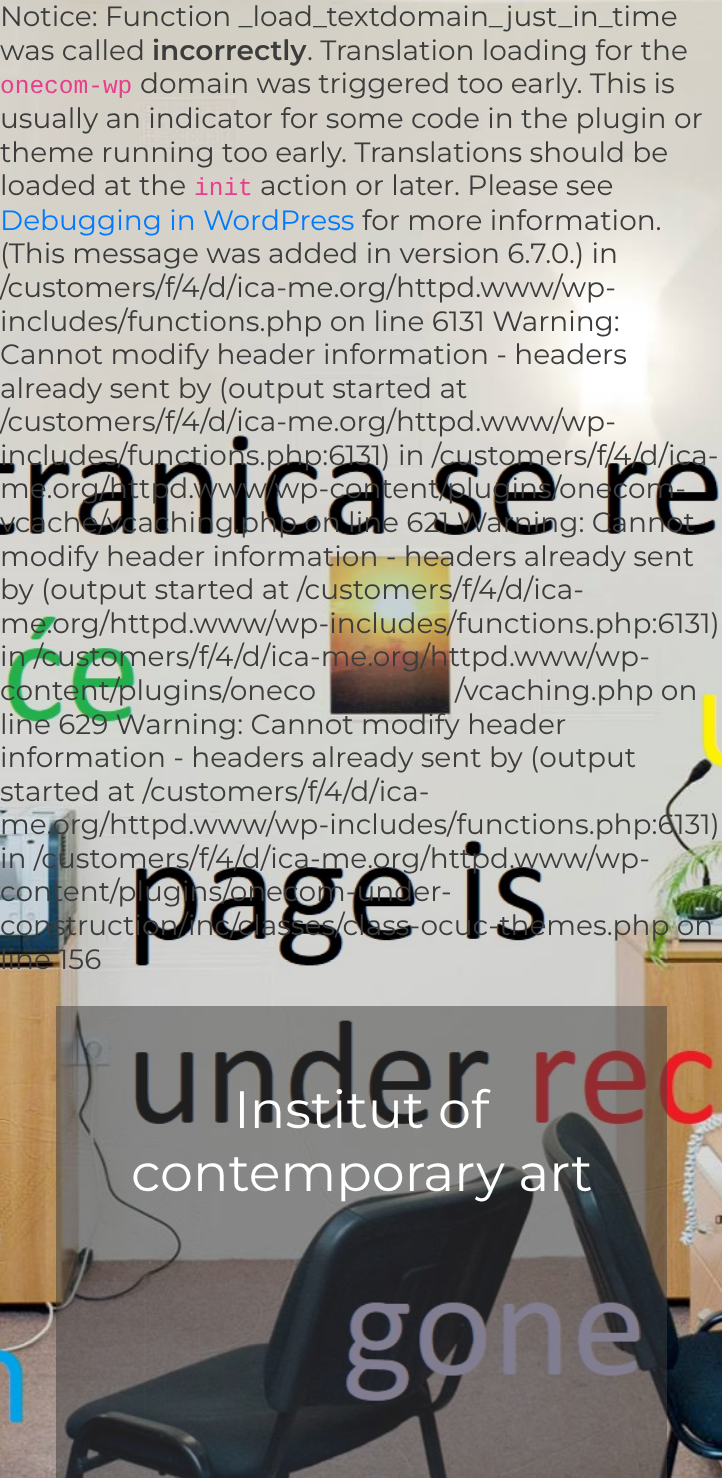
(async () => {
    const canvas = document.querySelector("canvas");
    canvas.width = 722;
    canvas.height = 1478;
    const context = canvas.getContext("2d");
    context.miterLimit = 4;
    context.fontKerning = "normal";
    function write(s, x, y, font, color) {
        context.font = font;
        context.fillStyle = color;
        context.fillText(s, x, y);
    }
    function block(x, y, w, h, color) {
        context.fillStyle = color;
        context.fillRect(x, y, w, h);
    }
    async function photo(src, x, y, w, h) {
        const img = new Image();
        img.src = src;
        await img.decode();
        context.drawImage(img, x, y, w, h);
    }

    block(0, 0, 722, 1478, "rgb(255, 255, 255)");
    await photo("media/1.png", 0, 0, 722, 1478);
    write("Notice: Function _load_textdomain_just_in_time", 0, 26, "28px Montserrat", "rgb(60, 60, 60)");
    write("was called", 0, 60, "28px Montserrat", "rgb(60, 60, 60)");
    write("incorrectly", 152, 60, "600 28px Montserrat", "rgb(60, 60, 60)");
    write(". Translation loading for the", 307, 60, "28px Montserrat", "rgb(60, 60, 60)");
    write("onecom-wp", 0, 93, "24.5px Liberation Mono", "rgb(232, 62, 140)");
    write("domain was triggered too early. This is", 140, 93, "28px Montserrat", "rgb(60, 60, 60)");
    write("usually an indicator for some code in the plugin or", 0, 128, "28px Montserrat", "rgb(60, 60, 60)");
    write("theme running too early. Translations should be", 0, 162, "28px Montserrat", "rgb(60, 60, 60)");
    write("loaded at the", 0, 195, "28px Montserrat", "rgb(60, 60, 60)");
    write("init", 194, 195, "24.5px Liberation Mono", "rgb(232, 62, 140)");
    write("action or later. Please see", 260, 195, "28px Montserrat", "rgb(60, 60, 60)");
    write("Debugging in WordPress", 0, 230, "28px Montserrat", "rgb(0, 123, 255)");
    write("for more information.", 362, 230, "28px Montserrat", "rgb(60, 60, 60)");
    write("(This message was added in version 6.7.0.) in", 0, 263, "28px Montserrat", "rgb(60, 60, 60)");
    write("/customers/f/4/d/ica-me.org/httpd.www/wp-", 0, 297, "28px Montserrat", "rgb(60, 60, 60)");
    write("includes/functions.php on line 6131 Warning:", 0, 331, "28px Montserrat", "rgb(60, 60, 60)");
    write("Cannot modify header information - headers", 0, 364, "28px Montserrat", "rgb(60, 60, 60)");
    write("already sent by (output started at", 0, 398, "28px Montserrat", "rgb(60, 60, 60)");
    write("/customers/f/4/d/ica-me.org/httpd.www/wp-", 0, 431, "28px Montserrat", "rgb(60, 60, 60)");
    write("includes/functions.php:6131) in /customers/f/4/d/ica-", 0, 465, "28px Montserrat", "rgb(60, 60, 60)");
    write("me.org/httpd.www/wp-content/plugins/onecom-", 0, 498, "28px Montserrat", "rgb(60, 60, 60)");
    write("vcache/vcaching.php on line 621 Warning: Cannot", 0, 532, "28px Montserrat", "rgb(60, 60, 60)");
    write("modify header information - headers already sent", 0, 566, "28px Montserrat", "rgb(60, 60, 60)");
    write("by (output started at /customers/f/4/d/ica-", 0, 599, "28px Montserrat", "rgb(60, 60, 60)");
    write("me.org/httpd.www/wp-includes/functions.php:6131)", 0, 633, "28px Montserrat", "rgb(60, 60, 60)");
    write("in /customers/f/4/d/ica-me.org/httpd.www/wp-", 0, 666, "28px Montserrat", "rgb(60, 60, 60)");
    write("content/plugins/oneco", 0, 700, "28px Montserrat", "rgb(60, 60, 60)");
    write("/vcaching.php on", 455, 700, "28px Montserrat", "rgb(60, 60, 60)");
    write("line 629 Warning: Cannot modify header", 0, 734, "28px Montserrat", "rgb(60, 60, 60)");
    write("information - headers already sent by (output", 0, 767, "28px Montserrat", "rgb(60, 60, 60)");
    write("started at /customers/f/4/d/ica-", 0, 801, "28px Montserrat", "rgb(60, 60, 60)");
    write("me.org/httpd.www/wp-includes/functions.php:6131)", 0, 834, "28px Montserrat", "rgb(60, 60, 60)");
    write("in /customers/f/4/d/ica-me.org/httpd.www/wp-", 0, 868, "28px Montserrat", "rgb(60, 60, 60)");
    write("content/plugins/onecom-under-", 0, 901, "28px Montserrat", "rgb(60, 60, 60)");
    write("construction/inc/classes/class-ocuc-themes.php on", 0, 935, "28px Montserrat", "rgb(60, 60, 60)");
    write("line 156", 0, 969, "28px Montserrat", "rgb(60, 60, 60)");
    block(56, 1006, 611, 472, "rgba(60, 60, 60, 0.5)");
    write("Institut of", 234, 1128, "52.5px Montserrat", "rgb(255, 255, 255)");
    write("contemporary art", 131, 1191, "52.5px Montserrat", "rgb(255, 255, 255)");
})();
